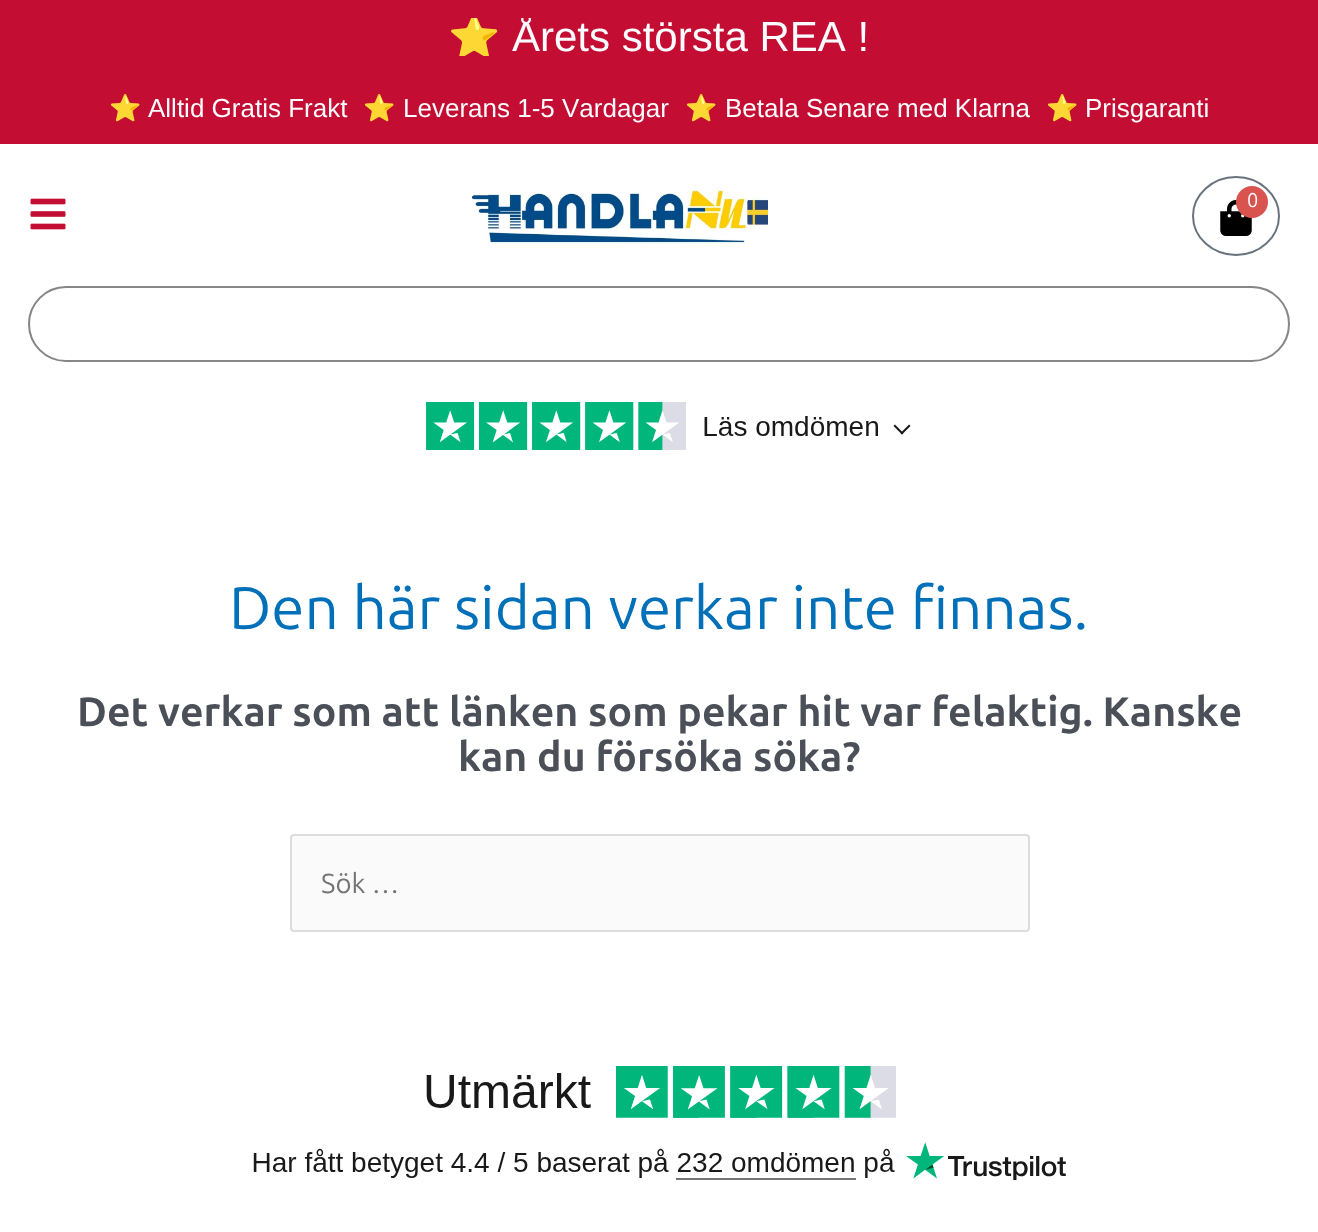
(async () => {
    const canvas = document.querySelector("canvas");
    canvas.width = 1318;
    canvas.height = 1232;
    const context = canvas.getContext("2d");
    context.miterLimit = 4;
    context.fontKerning = "none";
    function write(s, x, y, font, color) {
        context.font = font;
        context.fillStyle = color;
        context.fillText(s, x, y);
    }
    function block(x, y, w, h, color) {
        context.fillStyle = color;
        context.fillRect(x, y, w, h);
    }
    async function photo(src, x, y, w, h) {
        const img = new Image();
        img.src = src;
        await img.decode();
        context.drawImage(img, x, y, w, h);
    }

    block(0, 0, 1318, 1232, "rgb(255, 255, 255)");
    block(0, 0, 1318, 144, "rgb(196, 13, 51)");
    context.save();
    context.beginPath();
    context.rect(0, 18, 1318, 38);
    context.clip();
    write("⭐", 448, 51, "42px Noto Color Emoji", "rgb(251, 252, 253)");
    write("Årets största REA !", 512, 51, "42px Liberation Sans", "rgb(251, 252, 253)");
    context.restore();
    write("⭐", 109, 117, "26px Noto Color Emoji", "rgb(251, 252, 253)");
    write("Alltid Gratis Frakt", 148, 117, "26px Liberation Sans", "rgb(251, 252, 253)");
    write("⭐", 363, 117, "26px Noto Color Emoji", "rgb(251, 252, 253)");
    write("Leverans 1-5 Vardagar", 403, 117, "26px Liberation Sans", "rgb(251, 252, 253)");
    write("⭐", 685, 117, "26px Noto Color Emoji", "rgb(251, 252, 253)");
    write("Betala Senare med Klarna", 725, 117, "26px Liberation Sans", "rgb(251, 252, 253)");
    write("⭐", 1046, 117, "26px Noto Color Emoji", "rgb(251, 252, 253)");
    write("Prisgaranti", 1085, 117, "26px Liberation Sans", "rgb(251, 252, 253)");
    await photo("media/1.png", 30, 198, 36, 32);
    await photo("media/2.png", 472, 189, 296, 55);
    context.beginPath();
    context.moveTo(1236, 177);
    context.bezierCurveTo(1259.5, 177, 1279, 194.5, 1279, 216);
    context.bezierCurveTo(1279, 237.5, 1259.5, 255, 1236, 255);
    context.bezierCurveTo(1212.5, 255, 1193, 237.5, 1193, 216);
    context.bezierCurveTo(1193, 194.5, 1212.5, 177, 1236, 177);
    context.closePath();
    context.strokeStyle = "rgb(105, 114, 125)";
    context.lineWidth = 2;
    context.stroke();
    await photo("media/3.png", 1220, 200, 32, 36);
    context.fillStyle = "rgb(217, 83, 79)";
    context.beginPath();
    context.arc(1252, 202, 16, 0, Math.PI * 2);
    context.fill();
    write("0", 1247, 207, "20px Ubuntu", "rgb(251, 252, 253)");
    context.beginPath();
    context.roundRect(29, 287, 1260, 74, 37);
    context.strokeStyle = "rgb(134, 134, 134)";
    context.stroke();
    await photo("media/4.png", 426, 402, 485, 48);
    write("Den här sidan verkar inte finnas.", 229, 629, "60px Ubuntu", "rgb(1, 112, 185)");
    write("Det verkar som att länken som pekar hit var felaktig. Kanske", 77, 726, "bold 41.05px Ubuntu", "rgb(75, 79, 88)");
    write("kan du försöka söka?", 458, 771, "bold 41.05px Ubuntu", "rgb(75, 79, 88)");
    context.fillStyle = "rgb(250, 250, 250)";
    context.beginPath();
    context.roundRect(291, 835, 738, 96, 3);
    context.fill();
    context.strokeStyle = "rgb(221, 221, 221)";
    context.stroke();
    write("Sök …", 321, 893, "27.5px Ubuntu", "rgb(117, 117, 117)");
    await photo("media/5.png", 253, 1066, 813, 114);
})();
